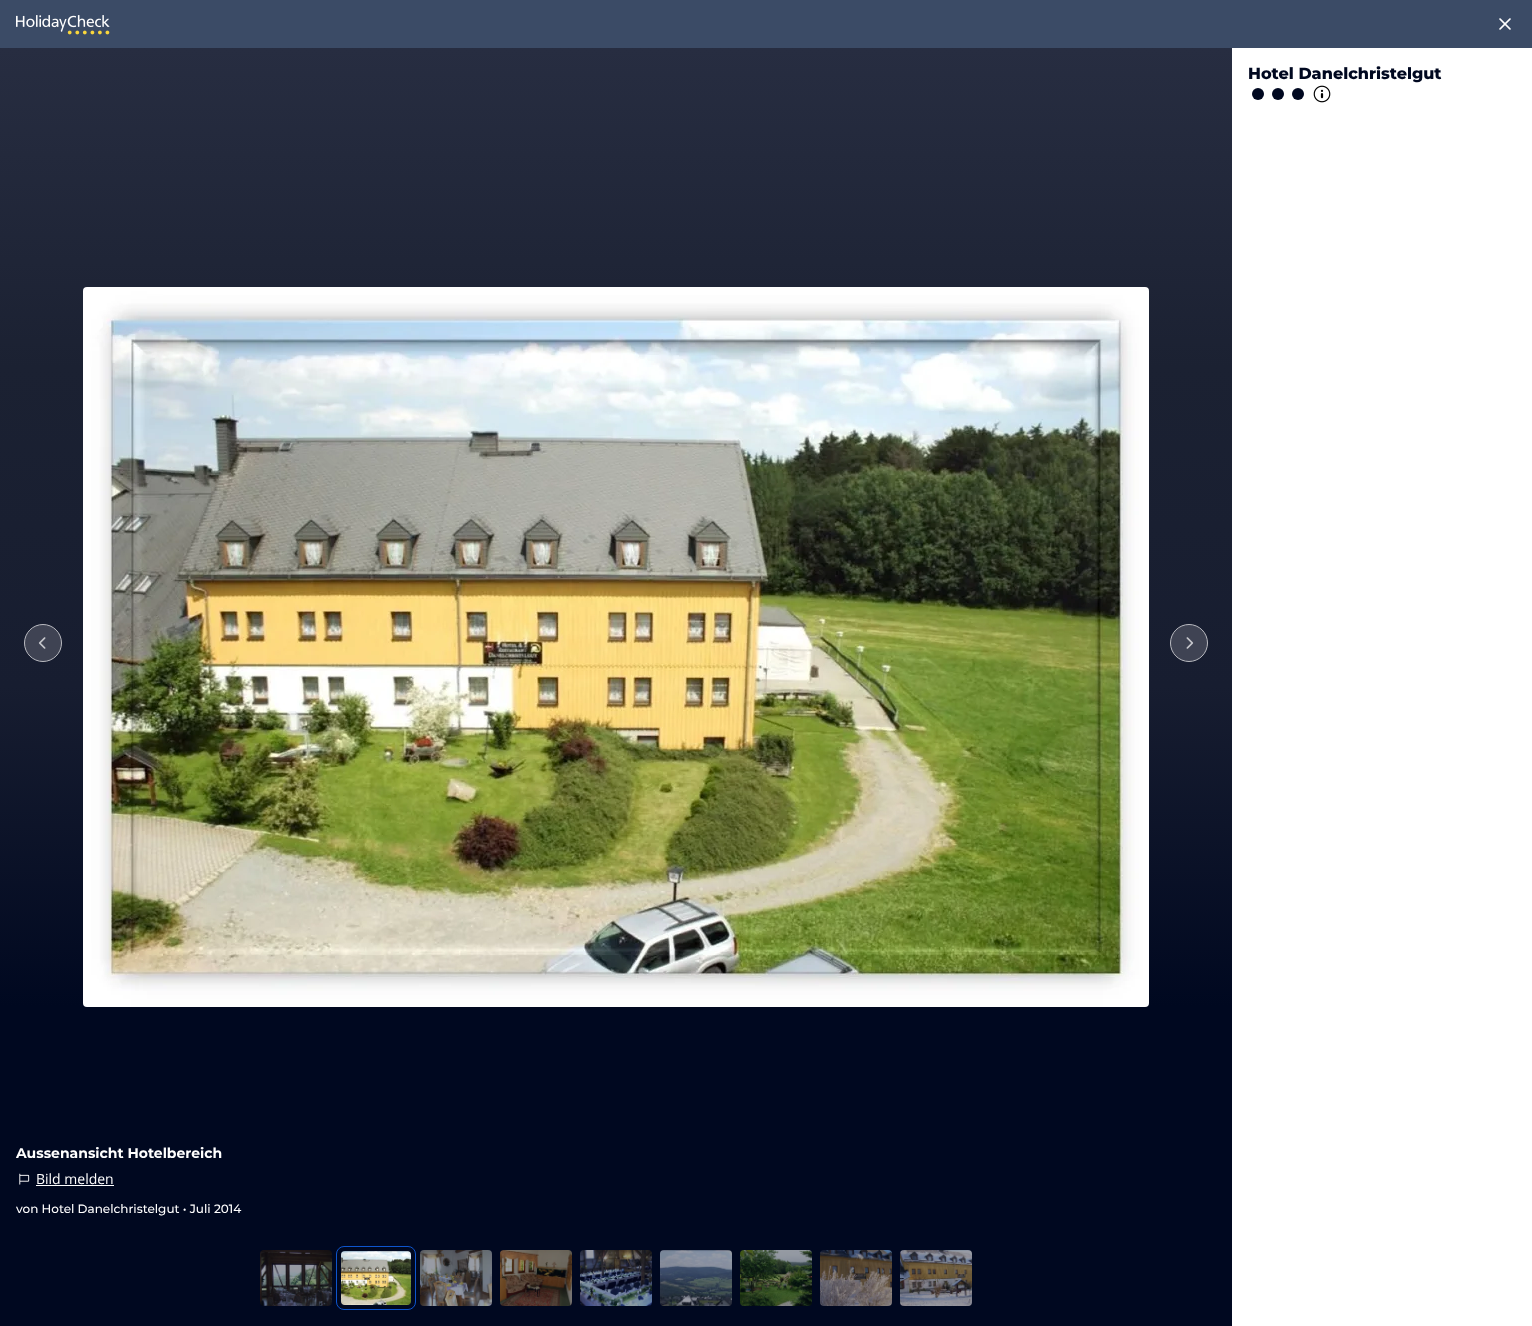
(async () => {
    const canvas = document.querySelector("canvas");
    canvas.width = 1532;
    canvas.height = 1326;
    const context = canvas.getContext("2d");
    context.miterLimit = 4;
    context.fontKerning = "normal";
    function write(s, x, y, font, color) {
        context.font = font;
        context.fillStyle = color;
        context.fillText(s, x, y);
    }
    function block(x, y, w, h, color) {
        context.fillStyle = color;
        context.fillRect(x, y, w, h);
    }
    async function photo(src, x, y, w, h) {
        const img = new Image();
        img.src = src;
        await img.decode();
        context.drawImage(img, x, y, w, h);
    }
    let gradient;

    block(0, 0, 1532, 1326, "rgb(255, 255, 255)");
    block(0, 0, 1532, 48, "rgb(59, 75, 102)");
    await photo("media/1.png", 16, 15, 94, 20);
    await photo("media/2.png", 1499, 18, 12, 12);
    write("Hotel Danelchristelgut", 1248, 79, "800 16px Montserrat", "rgb(0, 8, 32)");
    context.beginPath();
    context.arc(1258, 94, 6, 0, Math.PI * 2);
    context.fill();
    context.beginPath();
    context.arc(1278, 94, 6, 0, Math.PI * 2);
    context.fill();
    context.beginPath();
    context.arc(1298, 94, 6, 0, Math.PI * 2);
    context.fill();
    await photo("media/3.png", 1313, 85, 18, 18);
    gradient = context.createLinearGradient(616, 1326, 616, 48);
    gradient.addColorStop(0, "rgb(0, 8, 32)");
    gradient.addColorStop(0.25, "rgb(0, 8, 32)");
    gradient.addColorStop(0.5, "rgb(23, 29, 48)");
    gradient.addColorStop(0.75, "rgb(27, 33, 50)");
    gradient.addColorStop(1, "rgb(39, 45, 65)");
    context.fillStyle = gradient;
    context.fillRect(0, 48, 1232, 1278);
    context.fillStyle = "rgb(63, 67, 83)";
    context.beginPath();
    context.arc(43, 643, 18.5, 0, Math.PI * 2);
    context.fill();
    context.strokeStyle = "rgb(186, 187, 193)";
    context.stroke();
    await photo("media/4.png", 38, 637, 8, 12);
    context.beginPath();
    context.arc(1189, 643, 18.5, 0, Math.PI * 2);
    context.fill();
    context.stroke();
    await photo("media/5.png", 1186, 637, 8, 12);
    await photo("media/6.png", 83, 287, 1066, 720);
    write("Aussenansicht Hotelbereich", 16, 1158, "bold 14px Montserrat", "rgb(255, 255, 255)");
    await photo("media/7.png", 19, 1173, 11, 12);
    write("Bild melden", 36, 1184, "14px Open Sans", "rgb(255, 255, 255)");
    block(36, 1185, 78, 1, "rgb(255, 255, 255)");
    write("von Hotel Danelchristelgut • Juli 2014", 16, 1213, "500 12px Montserrat", "rgb(255, 255, 255)");
    await photo("media/8.png", 260, 1250, 72, 56);
    context.beginPath();
    context.roundRect(336.5, 1246.5, 79, 63, 7.5);
    context.strokeStyle = "rgb(14, 85, 205)";
    context.stroke();
    await photo("media/9.png", 341, 1251, 70, 54);
    await photo("media/10.png", 420, 1250, 72, 56);
    await photo("media/11.png", 500, 1250, 72, 56);
    await photo("media/12.png", 580, 1250, 72, 56);
    await photo("media/13.png", 660, 1250, 72, 56);
    await photo("media/14.png", 740, 1250, 72, 56);
    await photo("media/15.png", 820, 1250, 72, 56);
    await photo("media/16.png", 900, 1250, 72, 56);
})();
